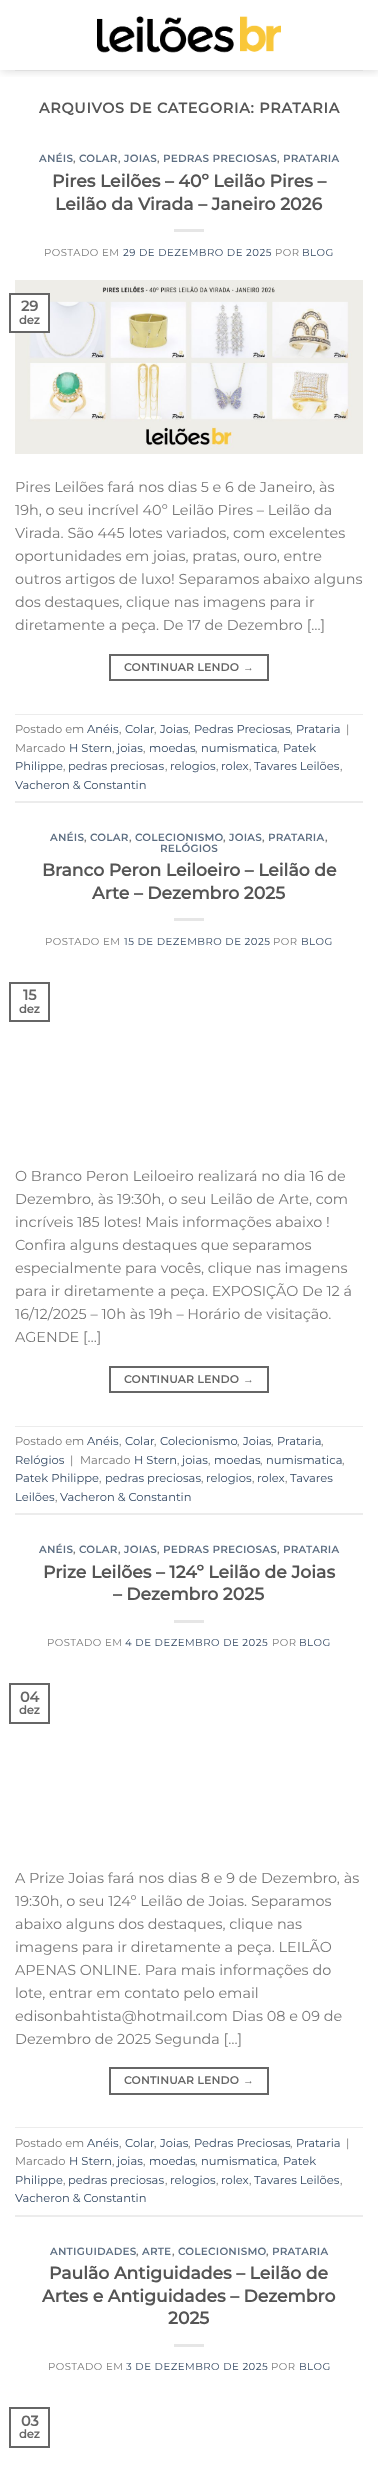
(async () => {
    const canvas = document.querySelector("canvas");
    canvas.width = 378;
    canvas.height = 2472;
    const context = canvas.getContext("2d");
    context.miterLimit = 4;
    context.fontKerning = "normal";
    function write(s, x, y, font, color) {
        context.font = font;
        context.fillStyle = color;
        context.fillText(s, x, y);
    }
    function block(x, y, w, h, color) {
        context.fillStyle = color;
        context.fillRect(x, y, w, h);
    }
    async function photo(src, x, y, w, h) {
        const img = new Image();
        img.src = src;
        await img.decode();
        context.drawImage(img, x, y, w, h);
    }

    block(0, 0, 378, 2472, "rgb(255, 255, 255)");
    context.save();
    context.beginPath();
    context.rect(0, 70, 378, 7);
    context.clip();
    context.fillStyle = "rgba(0, 0, 0, 0.15)";
    context.filter = "blur(5px)";
    context.beginPath();
    context.rect(1, 1, 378, 70);
    context.fill();
    context.filter = "none";
    context.restore();
    await photo("media/1.png", 97, 16, 184, 37);
    block(15, 70, 348, 1, "rgb(223, 223, 223)");
    context.letterSpacing = "0.75px";
    write("ARQUIVOS DE CATEGORIA: PRATARIA", 39, 113, "bold 14.4px Montserrat", "rgb(85, 85, 85)");
    context.letterSpacing = "0.5px";
    write("ANÉIS", 39, 162, "bold 10.1px Montserrat", "rgb(92, 109, 129)");
    write(",", 73, 162, "bold 10.1px Montserrat", "rgb(119, 119, 119)");
    write("COLAR", 79, 162, "bold 10.1px Montserrat", "rgb(92, 109, 129)");
    write(",", 118, 162, "bold 10.1px Montserrat", "rgb(119, 119, 119)");
    write("JOIAS", 124, 162, "bold 10.1px Montserrat", "rgb(92, 109, 129)");
    write(",", 157, 162, "bold 10.1px Montserrat", "rgb(119, 119, 119)");
    write("PEDRAS PRECIOSAS", 163, 162, "bold 10.1px Montserrat", "rgb(92, 109, 129)");
    write(",", 277, 162, "bold 10.1px Montserrat", "rgb(119, 119, 119)");
    write("PRATARIA", 283, 162, "bold 10.1px Montserrat", "rgb(92, 109, 129)");
    context.letterSpacing = "0px";
    write("Pires Leilões – 40º Leilão Pires –", 52, 187, "bold 17.25px Montserrat", "rgb(85, 85, 85)");
    write("Leilão da Virada – Janeiro 2026", 55, 210, "bold 17.25px Montserrat", "rgb(85, 85, 85)");
    block(174, 229, 30, 3, "rgb(230, 230, 230)");
    context.letterSpacing = "0.5px";
    write("POSTADO EM", 44, 256, "10.1px Montserrat", "rgb(119, 119, 119)");
    write("29 DE DEZEMBRO DE 2025", 123, 256, "10.1px Montserrat", "rgb(51, 72, 98)");
    write("POR", 275, 256, "10.1px Montserrat", "rgb(119, 119, 119)");
    write("BLOG", 302, 256, "10.1px Montserrat", "rgb(51, 72, 98)");
    await photo("media/2.png", 15, 280, 348, 174);
    block(15, 295, 33, 36, "rgb(255, 255, 255)");
    context.strokeStyle = "rgb(102, 102, 102)";
    context.lineWidth = 2;
    context.strokeRect(10, 294, 39, 38);
    context.letterSpacing = "0px";
    write("29", 21, 311, "bold 14.4px Montserrat", "rgb(102, 102, 102)");
    write("dez", 19, 324, "bold 11.5px Montserrat", "rgb(102, 102, 102)");
    write("Pires Leilões fará nos dias 5 e 6 de Janeiro, às", 15, 492, "14.4px Montserrat", "rgb(119, 119, 119)");
    write("19h, o seu incrível 40º Leilão Pires – Leilão da", 15, 515, "14.4px Montserrat", "rgb(119, 119, 119)");
    write("Virada. São 445 lotes variados, com excelentes", 15, 538, "14.4px Montserrat", "rgb(119, 119, 119)");
    write("oportunidades em joias, pratas, ouro, entre", 15, 561, "14.4px Montserrat", "rgb(119, 119, 119)");
    write("outros artigos de luxo! Separamos abaixo alguns", 15, 584, "14.4px Montserrat", "rgb(119, 119, 119)");
    write("dos destaques, clique nas imagens para ir", 15, 607, "14.4px Montserrat", "rgb(119, 119, 119)");
    write("diretamente a peça. De 17 de Dezembro […]", 15, 630, "14.4px Montserrat", "rgb(119, 119, 119)");
    context.strokeRect(110, 655, 158, 25);
    context.letterSpacing = "0.3px";
    write("CONTINUAR LENDO", 124, 671, "bold 10.75px Montserrat", "rgb(102, 102, 102)");
    write("→", 243, 671, "bold 10.75px Liberation Sans", "rgb(102, 102, 102)");
    block(15, 714, 348, 1, "rgb(236, 236, 236)");
    block(15, 801, 348, 2, "rgb(236, 236, 236)");
    context.letterSpacing = "0px";
    write("Postado em", 15, 733, "11.5px Montserrat", "rgb(119, 119, 119)");
    write("Anéis", 87, 733, "11.5px Montserrat", "rgb(51, 72, 98)");
    write(",", 119, 733, "11.5px Montserrat", "rgb(119, 119, 119)");
    write("Colar", 125, 733, "11.5px Montserrat", "rgb(51, 72, 98)");
    write(",", 154, 733, "11.5px Montserrat", "rgb(119, 119, 119)");
    write("Joias", 160, 733, "11.5px Montserrat", "rgb(51, 72, 98)");
    write(",", 188, 733, "11.5px Montserrat", "rgb(119, 119, 119)");
    write("Pedras Preciosas", 194, 733, "11.5px Montserrat", "rgb(51, 72, 98)");
    write(",", 290, 733, "11.5px Montserrat", "rgb(119, 119, 119)");
    write("Prataria", 296, 733, "11.5px Montserrat", "rgb(51, 72, 98)");
    write("|", 346, 733, "11.5px Montserrat", "rgb(119, 119, 119)");
    write("Marcado", 15, 752, "11.5px Montserrat", "rgb(119, 119, 119)");
    write("H Stern", 69, 752, "11.5px Montserrat", "rgb(51, 72, 98)");
    write(",", 112, 752, "11.5px Montserrat", "rgb(119, 119, 119)");
    write("joias", 117, 752, "11.5px Montserrat", "rgb(51, 72, 98)");
    write(",", 143, 752, "11.5px Montserrat", "rgb(119, 119, 119)");
    write("moedas", 149, 752, "11.5px Montserrat", "rgb(51, 72, 98)");
    write(",", 195, 752, "11.5px Montserrat", "rgb(119, 119, 119)");
    write("numismatica", 201, 752, "11.5px Montserrat", "rgb(51, 72, 98)");
    write(",", 277, 752, "11.5px Montserrat", "rgb(119, 119, 119)");
    write("Patek", 283, 752, "11.5px Montserrat", "rgb(51, 72, 98)");
    write("Philippe", 15, 770, "11.5px Montserrat", "rgb(51, 72, 98)");
    write(",", 63, 770, "11.5px Montserrat", "rgb(119, 119, 119)");
    write("pedras preciosas", 68, 770, "11.5px Montserrat", "rgb(51, 72, 98)");
    write(",", 165, 770, "11.5px Montserrat", "rgb(119, 119, 119)");
    write("relogios", 170, 770, "11.5px Montserrat", "rgb(51, 72, 98)");
    write(",", 216, 770, "11.5px Montserrat", "rgb(119, 119, 119)");
    write("rolex", 221, 770, "11.5px Montserrat", "rgb(51, 72, 98)");
    write(",", 249, 770, "11.5px Montserrat", "rgb(119, 119, 119)");
    write("Tavares Leilões", 254, 770, "11.5px Montserrat", "rgb(51, 72, 98)");
    write(",", 340, 770, "11.5px Montserrat", "rgb(119, 119, 119)");
    write("Vacheron & Constantin", 15, 789, "11.5px Montserrat", "rgb(51, 72, 98)");
    context.letterSpacing = "0.5px";
    write("ANÉIS", 50, 841, "bold 10.1px Montserrat", "rgb(92, 109, 129)");
    write(",", 84, 841, "bold 10.1px Montserrat", "rgb(119, 119, 119)");
    write("COLAR", 90, 841, "bold 10.1px Montserrat", "rgb(92, 109, 129)");
    write(",", 129, 841, "bold 10.1px Montserrat", "rgb(119, 119, 119)");
    write("COLECIONISMO", 135, 841, "bold 10.1px Montserrat", "rgb(92, 109, 129)");
    write(",", 223, 841, "bold 10.1px Montserrat", "rgb(119, 119, 119)");
    write("JOIAS", 229, 841, "bold 10.1px Montserrat", "rgb(92, 109, 129)");
    write(",", 262, 841, "bold 10.1px Montserrat", "rgb(119, 119, 119)");
    write("PRATARIA", 268, 841, "bold 10.1px Montserrat", "rgb(92, 109, 129)");
    write(",", 325, 841, "bold 10.1px Montserrat", "rgb(119, 119, 119)");
    write("RELÓGIOS", 160, 852, "bold 10.1px Montserrat", "rgb(92, 109, 129)");
    context.letterSpacing = "0px";
    write("Branco Peron Leiloeiro – Leilão de", 42, 876, "bold 17.25px Montserrat", "rgb(85, 85, 85)");
    write("Arte – Dezembro 2025", 92, 899, "bold 17.25px Montserrat", "rgb(85, 85, 85)");
    block(174, 918, 30, 3, "rgb(230, 230, 230)");
    context.letterSpacing = "0.5px";
    write("POSTADO EM", 45, 945, "10.1px Montserrat", "rgb(119, 119, 119)");
    write("15 DE DEZEMBRO DE 2025", 124, 945, "10.1px Montserrat", "rgb(51, 72, 98)");
    write("POR", 273, 945, "10.1px Montserrat", "rgb(119, 119, 119)");
    write("BLOG", 301, 945, "10.1px Montserrat", "rgb(51, 72, 98)");
    context.strokeRect(10, 983, 39, 38);
    context.letterSpacing = "0px";
    write("15", 23, 1000, "bold 14.4px Montserrat", "rgb(102, 102, 102)");
    write("dez", 19, 1013, "bold 11.5px Montserrat", "rgb(102, 102, 102)");
    write("O Branco Peron Leiloeiro realizará no dia 16 de", 15, 1181, "14.4px Montserrat", "rgb(119, 119, 119)");
    write("Dezembro, às 19:30h, o seu Leilão de Arte, com", 15, 1204, "14.4px Montserrat", "rgb(119, 119, 119)");
    write("incríveis 185 lotes! Mais informações abaixo !", 15, 1227, "14.4px Montserrat", "rgb(119, 119, 119)");
    write("Confira alguns destaques que separamos", 15, 1250, "14.4px Montserrat", "rgb(119, 119, 119)");
    write("especialmente para vocês, clique nas imagens", 15, 1273, "14.4px Montserrat", "rgb(119, 119, 119)");
    write("para ir diretamente a peça. EXPOSIÇÃO De 12 á", 15, 1296, "14.4px Montserrat", "rgb(119, 119, 119)");
    write("16/12/2025 – 10h às 19h – Horário de visitação.", 15, 1319, "14.4px Montserrat", "rgb(119, 119, 119)");
    write("AGENDE […]", 15, 1342, "14.4px Montserrat", "rgb(119, 119, 119)");
    context.strokeRect(110, 1367, 158, 25);
    context.letterSpacing = "0.3px";
    write("CONTINUAR LENDO", 124, 1383, "bold 10.75px Montserrat", "rgb(102, 102, 102)");
    write("→", 243, 1383, "bold 10.75px Liberation Sans", "rgb(102, 102, 102)");
    block(15, 1426, 348, 1, "rgb(236, 236, 236)");
    block(15, 1513, 348, 2, "rgb(236, 236, 236)");
    context.letterSpacing = "0px";
    write("Postado em", 15, 1445, "11.5px Montserrat", "rgb(119, 119, 119)");
    write("Anéis", 87, 1445, "11.5px Montserrat", "rgb(51, 72, 98)");
    write(",", 119, 1445, "11.5px Montserrat", "rgb(119, 119, 119)");
    write("Colar", 125, 1445, "11.5px Montserrat", "rgb(51, 72, 98)");
    write(",", 154, 1445, "11.5px Montserrat", "rgb(119, 119, 119)");
    write("Colecionismo", 160, 1445, "11.5px Montserrat", "rgb(51, 72, 98)");
    write(",", 237, 1445, "11.5px Montserrat", "rgb(119, 119, 119)");
    write("Joias", 243, 1445, "11.5px Montserrat", "rgb(51, 72, 98)");
    write(",", 271, 1445, "11.5px Montserrat", "rgb(119, 119, 119)");
    write("Prataria", 277, 1445, "11.5px Montserrat", "rgb(51, 72, 98)");
    write(",", 321, 1445, "11.5px Montserrat", "rgb(119, 119, 119)");
    write("Relógios", 15, 1464, "11.5px Montserrat", "rgb(51, 72, 98)");
    write("|", 70, 1464, "11.5px Montserrat", "rgb(119, 119, 119)");
    write("Marcado", 80, 1464, "11.5px Montserrat", "rgb(119, 119, 119)");
    write("H Stern", 134, 1464, "11.5px Montserrat", "rgb(51, 72, 98)");
    write(",", 177, 1464, "11.5px Montserrat", "rgb(119, 119, 119)");
    write("joias", 182, 1464, "11.5px Montserrat", "rgb(51, 72, 98)");
    write(",", 208, 1464, "11.5px Montserrat", "rgb(119, 119, 119)");
    write("moedas", 214, 1464, "11.5px Montserrat", "rgb(51, 72, 98)");
    write(",", 260, 1464, "11.5px Montserrat", "rgb(119, 119, 119)");
    write("numismatica", 266, 1464, "11.5px Montserrat", "rgb(51, 72, 98)");
    write(",", 342, 1464, "11.5px Montserrat", "rgb(119, 119, 119)");
    write("Patek Philippe", 15, 1482, "11.5px Montserrat", "rgb(51, 72, 98)");
    write(",", 99, 1482, "11.5px Montserrat", "rgb(119, 119, 119)");
    write("pedras preciosas", 105, 1482, "11.5px Montserrat", "rgb(51, 72, 98)");
    write(",", 201, 1482, "11.5px Montserrat", "rgb(119, 119, 119)");
    write("relogios", 206, 1482, "11.5px Montserrat", "rgb(51, 72, 98)");
    write(",", 252, 1482, "11.5px Montserrat", "rgb(119, 119, 119)");
    write("rolex", 257, 1482, "11.5px Montserrat", "rgb(51, 72, 98)");
    write(",", 285, 1482, "11.5px Montserrat", "rgb(119, 119, 119)");
    write("Tavares", 290, 1482, "11.5px Montserrat", "rgb(51, 72, 98)");
    write("Leilões", 15, 1501, "11.5px Montserrat", "rgb(51, 72, 98)");
    write(",", 55, 1501, "11.5px Montserrat", "rgb(119, 119, 119)");
    write("Vacheron & Constantin", 60, 1501, "11.5px Montserrat", "rgb(51, 72, 98)");
    context.letterSpacing = "0.5px";
    write("ANÉIS", 39, 1553, "bold 10.1px Montserrat", "rgb(92, 109, 129)");
    write(",", 73, 1553, "bold 10.1px Montserrat", "rgb(119, 119, 119)");
    write("COLAR", 79, 1553, "bold 10.1px Montserrat", "rgb(92, 109, 129)");
    write(",", 118, 1553, "bold 10.1px Montserrat", "rgb(119, 119, 119)");
    write("JOIAS", 124, 1553, "bold 10.1px Montserrat", "rgb(92, 109, 129)");
    write(",", 157, 1553, "bold 10.1px Montserrat", "rgb(119, 119, 119)");
    write("PEDRAS PRECIOSAS", 163, 1553, "bold 10.1px Montserrat", "rgb(92, 109, 129)");
    write(",", 277, 1553, "bold 10.1px Montserrat", "rgb(119, 119, 119)");
    write("PRATARIA", 283, 1553, "bold 10.1px Montserrat", "rgb(92, 109, 129)");
    context.letterSpacing = "0px";
    write("Prize Leilões – 124º Leilão de Joias", 43, 1578, "bold 17.25px Montserrat", "rgb(85, 85, 85)");
    write("– Dezembro 2025", 113, 1600, "bold 17.25px Montserrat", "rgb(85, 85, 85)");
    block(174, 1620, 30, 3, "rgb(230, 230, 230)");
    context.letterSpacing = "0.5px";
    write("POSTADO EM", 47, 1646, "10.1px Montserrat", "rgb(119, 119, 119)");
    write("4 DE DEZEMBRO DE 2025", 125, 1646, "10.1px Montserrat", "rgb(51, 72, 98)");
    write("POR", 272, 1646, "10.1px Montserrat", "rgb(119, 119, 119)");
    write("BLOG", 299, 1646, "10.1px Montserrat", "rgb(51, 72, 98)");
    context.strokeRect(10, 1684, 39, 39);
    context.letterSpacing = "0px";
    write("04", 20, 1702, "bold 14.4px Montserrat", "rgb(102, 102, 102)");
    write("dez", 19, 1714, "bold 11.5px Montserrat", "rgb(102, 102, 102)");
    write("A Prize Joias fará nos dias 8 e 9 de Dezembro, às", 15, 1883, "14.4px Montserrat", "rgb(119, 119, 119)");
    write("19:30h, o seu 124º Leilão de Joias. Separamos", 15, 1906, "14.4px Montserrat", "rgb(119, 119, 119)");
    write("abaixo alguns dos destaques, clique nas", 15, 1929, "14.4px Montserrat", "rgb(119, 119, 119)");
    write("imagens para ir diretamente a peça. LEILÃO", 15, 1952, "14.4px Montserrat", "rgb(119, 119, 119)");
    write("APENAS ONLINE. Para mais informações do", 15, 1975, "14.4px Montserrat", "rgb(119, 119, 119)");
    write("lote, entrar em contato pelo email", 15, 1998, "14.4px Montserrat", "rgb(119, 119, 119)");
    write("edisonbahtista@hotmail.com Dias 08 e 09 de", 15, 2021, "14.4px Montserrat", "rgb(119, 119, 119)");
    write("Dezembro de 2025 Segunda […]", 15, 2044, "14.4px Montserrat", "rgb(119, 119, 119)");
    context.strokeRect(110, 2068, 158, 26);
    context.letterSpacing = "0.3px";
    write("CONTINUAR LENDO", 124, 2084, "bold 10.75px Montserrat", "rgb(102, 102, 102)");
    write("→", 243, 2084, "bold 10.75px Liberation Sans", "rgb(102, 102, 102)");
    block(15, 2127, 348, 1, "rgb(236, 236, 236)");
    block(15, 2215, 348, 2, "rgb(236, 236, 236)");
    context.letterSpacing = "0px";
    write("Postado em", 15, 2147, "11.5px Montserrat", "rgb(119, 119, 119)");
    write("Anéis", 87, 2147, "11.5px Montserrat", "rgb(51, 72, 98)");
    write(",", 119, 2147, "11.5px Montserrat", "rgb(119, 119, 119)");
    write("Colar", 125, 2147, "11.5px Montserrat", "rgb(51, 72, 98)");
    write(",", 154, 2147, "11.5px Montserrat", "rgb(119, 119, 119)");
    write("Joias", 160, 2147, "11.5px Montserrat", "rgb(51, 72, 98)");
    write(",", 188, 2147, "11.5px Montserrat", "rgb(119, 119, 119)");
    write("Pedras Preciosas", 194, 2147, "11.5px Montserrat", "rgb(51, 72, 98)");
    write(",", 290, 2147, "11.5px Montserrat", "rgb(119, 119, 119)");
    write("Prataria", 296, 2147, "11.5px Montserrat", "rgb(51, 72, 98)");
    write("|", 346, 2147, "11.5px Montserrat", "rgb(119, 119, 119)");
    write("Marcado", 15, 2165, "11.5px Montserrat", "rgb(119, 119, 119)");
    write("H Stern", 69, 2165, "11.5px Montserrat", "rgb(51, 72, 98)");
    write(",", 112, 2165, "11.5px Montserrat", "rgb(119, 119, 119)");
    write("joias", 117, 2165, "11.5px Montserrat", "rgb(51, 72, 98)");
    write(",", 143, 2165, "11.5px Montserrat", "rgb(119, 119, 119)");
    write("moedas", 149, 2165, "11.5px Montserrat", "rgb(51, 72, 98)");
    write(",", 195, 2165, "11.5px Montserrat", "rgb(119, 119, 119)");
    write("numismatica", 201, 2165, "11.5px Montserrat", "rgb(51, 72, 98)");
    write(",", 277, 2165, "11.5px Montserrat", "rgb(119, 119, 119)");
    write("Patek", 283, 2165, "11.5px Montserrat", "rgb(51, 72, 98)");
    write("Philippe", 15, 2184, "11.5px Montserrat", "rgb(51, 72, 98)");
    write(",", 63, 2184, "11.5px Montserrat", "rgb(119, 119, 119)");
    write("pedras preciosas", 68, 2184, "11.5px Montserrat", "rgb(51, 72, 98)");
    write(",", 165, 2184, "11.5px Montserrat", "rgb(119, 119, 119)");
    write("relogios", 170, 2184, "11.5px Montserrat", "rgb(51, 72, 98)");
    write(",", 216, 2184, "11.5px Montserrat", "rgb(119, 119, 119)");
    write("rolex", 221, 2184, "11.5px Montserrat", "rgb(51, 72, 98)");
    write(",", 249, 2184, "11.5px Montserrat", "rgb(119, 119, 119)");
    write("Tavares Leilões", 254, 2184, "11.5px Montserrat", "rgb(51, 72, 98)");
    write(",", 340, 2184, "11.5px Montserrat", "rgb(119, 119, 119)");
    write("Vacheron & Constantin", 15, 2202, "11.5px Montserrat", "rgb(51, 72, 98)");
    context.letterSpacing = "0.5px";
    write("ANTIGUIDADES", 50, 2255, "bold 10.1px Montserrat", "rgb(92, 109, 129)");
    write(",", 136, 2255, "bold 10.1px Montserrat", "rgb(119, 119, 119)");
    write("ARTE", 142, 2255, "bold 10.1px Montserrat", "rgb(92, 109, 129)");
    write(",", 172, 2255, "bold 10.1px Montserrat", "rgb(119, 119, 119)");
    write("COLECIONISMO", 178, 2255, "bold 10.1px Montserrat", "rgb(92, 109, 129)");
    write(",", 266, 2255, "bold 10.1px Montserrat", "rgb(119, 119, 119)");
    write("PRATARIA", 272, 2255, "bold 10.1px Montserrat", "rgb(92, 109, 129)");
    context.letterSpacing = "0px";
    write("Paulão Antiguidades – Leilão de", 49, 2279, "bold 17.25px Montserrat", "rgb(85, 85, 85)");
    write("Artes e Antiguidades – Dezembro", 42, 2302, "bold 17.25px Montserrat", "rgb(85, 85, 85)");
    write("2025", 168, 2324, "bold 17.25px Montserrat", "rgb(85, 85, 85)");
    block(174, 2344, 30, 3, "rgb(230, 230, 230)");
    context.letterSpacing = "0.5px";
    write("POSTADO EM", 48, 2370, "10.1px Montserrat", "rgb(119, 119, 119)");
    write("3 DE DEZEMBRO DE 2025", 126, 2370, "10.1px Montserrat", "rgb(51, 72, 98)");
    write("POR", 271, 2370, "10.1px Montserrat", "rgb(119, 119, 119)");
    write("BLOG", 299, 2370, "10.1px Montserrat", "rgb(51, 72, 98)");
    context.strokeRect(10, 2408, 39, 39);
    context.letterSpacing = "0px";
    write("03", 21, 2426, "bold 14.4px Montserrat", "rgb(102, 102, 102)");
    write("dez", 19, 2438, "bold 11.5px Montserrat", "rgb(102, 102, 102)");
})();
